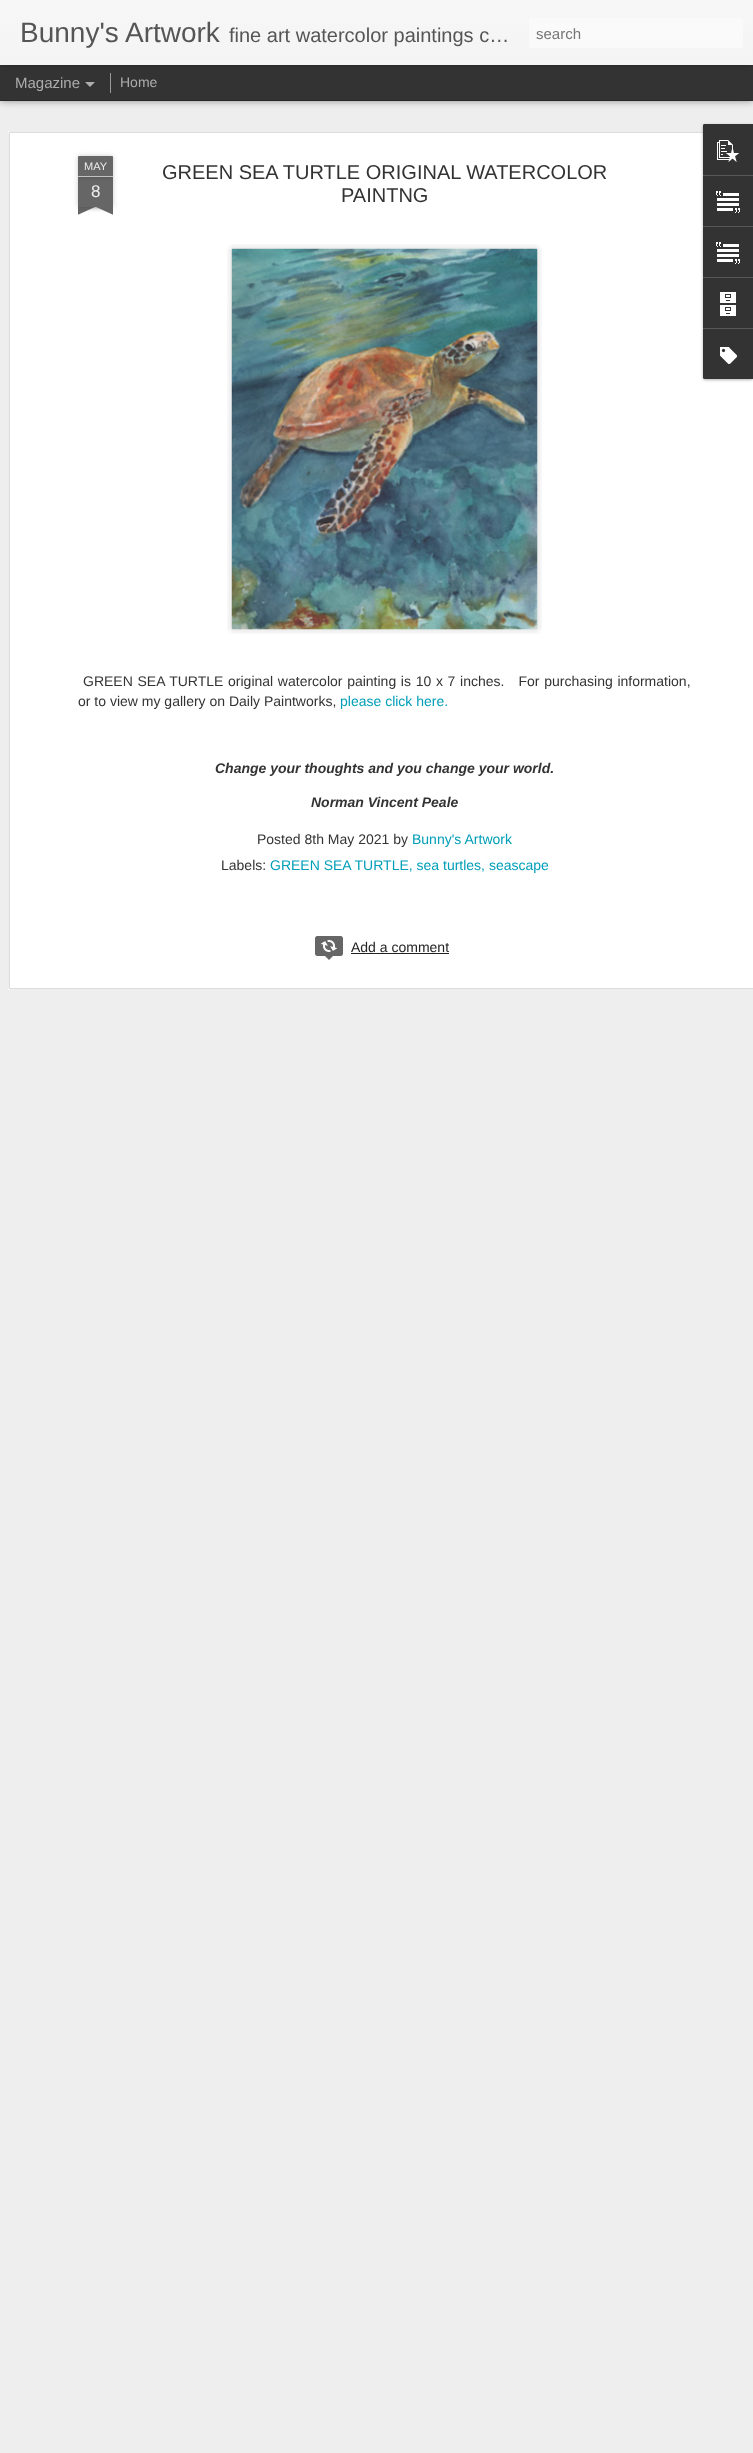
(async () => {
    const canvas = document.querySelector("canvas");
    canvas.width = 753;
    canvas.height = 2453;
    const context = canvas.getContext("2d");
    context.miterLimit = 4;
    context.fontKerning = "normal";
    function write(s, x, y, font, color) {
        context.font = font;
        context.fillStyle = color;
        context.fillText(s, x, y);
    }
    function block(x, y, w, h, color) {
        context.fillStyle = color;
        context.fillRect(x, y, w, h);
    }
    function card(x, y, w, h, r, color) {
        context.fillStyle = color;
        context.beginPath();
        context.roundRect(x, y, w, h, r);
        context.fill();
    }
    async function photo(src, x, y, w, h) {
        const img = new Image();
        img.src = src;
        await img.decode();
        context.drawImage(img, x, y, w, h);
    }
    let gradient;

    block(0, 0, 753, 2453, "rgb(51, 51, 51)");
    block(0, 101, 753, 2352, "rgb(238, 238, 238)");
    context.fillStyle = "rgba(0, 0, 0, 0.5)";
    context.filter = "blur(4px)";
    context.beginPath();
    context.rect(0, 65, 753, 35);
    context.fill();
    context.filter = "none";
    block(0, 65, 753, 35, "rgb(51, 51, 51)");
    block(110, 73, 1, 20, "rgb(153, 153, 153)");
    context.fillStyle = "rgba(0, 0, 0, 0.3)";
    context.filter = "blur(2.5px)";
    context.beginPath();
    context.rect(0, 0, 753, 65);
    context.fill();
    context.filter = "none";
    gradient = context.createLinearGradient(0, 0, 0, 65);
    gradient.addColorStop(0, "rgb(247, 247, 247)");
    gradient.addColorStop(1, "rgb(244, 244, 244)");
    context.fillStyle = gradient;
    context.fillRect(0, 0, 753, 65);
    write("Bunny's Artwork", 20, 42, "28px Liberation Sans", "rgb(85, 85, 85)");
    write("fine art watercolor paintings c…", 229, 42, "20px Liberation Sans", "rgb(85, 85, 85)");
    card(529, 18, 214, 30, 3, "rgb(250, 250, 250)");
    write("search", 536, 39, "15px Liberation Sans", "rgb(117, 117, 117)");
    write("Magazine", 15, 88, "15px Liberation Sans", "rgb(173, 173, 173)");
    context.beginPath();
    context.moveTo(85, 82);
    context.lineTo(95, 82);
    context.lineTo(90, 87);
    context.closePath();
    context.fill();
    write("Home", 120, 87, "14px Liberation Sans", "rgb(173, 173, 173)");
    block(8, 131, 745, 859, "rgb(255, 255, 255)");
    await photo("media/1.png", 8, 131, 745, 859);
    context.fillStyle = "rgba(0, 0, 0, 0.2)";
    context.filter = "blur(2.5px)";
    context.beginPath();
    context.rect(78, 177, 35, 30);
    context.fill();
    context.filter = "none";
    block(78, 177, 35, 30, "rgb(102, 102, 102)");
    context.fillStyle = "rgba(0, 0, 0, 0.2)";
    context.filter = "blur(2.5px)";
    context.beginPath();
    context.roundRect(78, 156, 35, 21, 1);
    context.fill();
    context.filter = "none";
    context.fillStyle = "rgb(102, 102, 102)";
    context.beginPath();
    context.roundRect(78, 156, 35, 21, [1, 1, 0, 0]);
    context.fill();
    block(78, 176, 35, 1, "rgb(194, 194, 194)");
    write("MAY", 84, 170, "11px Liberation Sans", "rgb(238, 238, 238)");
    write("8", 91, 197, "17px Liberation Sans", "rgb(238, 238, 238)");
    context.save();
    context.beginPath();
    context.rect(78, 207, 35, 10);
    context.clip();
    context.fillStyle = "rgba(0, 0, 0, 0.2)";
    context.filter = "blur(2.5px)";
    context.beginPath();
    context.rect(69, 197, 50, 10);
    context.fill();
    context.filter = "none";
    context.restore();
    context.save();
    context.beginPath();
    context.rect(78, 207, 35, 10);
    context.clip();
    context.fillStyle = "rgb(102, 102, 102)";
    context.beginPath();
    context.moveTo(69, 208);
    context.lineTo(115, 187);
    context.lineTo(119, 196);
    context.lineTo(73, 217);
    context.closePath();
    context.fill();
    context.restore();
    context.save();
    context.beginPath();
    context.rect(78, 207, 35, 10);
    context.clip();
    context.fillStyle = "rgba(0, 0, 0, 0.2)";
    context.filter = "blur(2.5px)";
    context.beginPath();
    context.rect(72, 197, 50, 10);
    context.fill();
    context.filter = "none";
    context.restore();
    context.save();
    context.beginPath();
    context.rect(78, 207, 35, 10);
    context.clip();
    context.fillStyle = "rgb(102, 102, 102)";
    context.beginPath();
    context.moveTo(76, 187);
    context.lineTo(122, 208);
    context.lineTo(118, 217);
    context.lineTo(72, 196);
    context.closePath();
    context.fill();
    context.restore();
    write("GREEN SEA TURTLE ORIGINAL WATERCOLOR", 162, 179, "20px Liberation Sans", "rgb(51, 51, 51)");
    write("PAINTNG", 341, 202, "20px Liberation Sans", "rgb(51, 51, 51)");
    await photo("media/2.png", 227, 244, 315, 390);
    await photo("media/3.png", 231, 248, 307, 382);
    context.wordSpacing = "0.8px";
    write("GREEN SEA TURTLE original watercolor painting is 10 x 7 inches.   For purchasing information,", 83, 686, "14px Liberation Sans", "rgb(51, 51, 51)");
    context.wordSpacing = "0px";
    write("or to view my gallery on Daily Paintworks,", 78, 706, "14px Liberation Sans", "rgb(51, 51, 51)");
    write("please click here.", 340, 706, "14px Liberation Sans", "rgb(0, 158, 184)");
    write("Change your thoughts and you change your world.", 215, 773, "italic bold 14px Liberation Sans", "rgb(51, 51, 51)");
    write("Norman Vincent Peale", 311, 807, "italic bold 14px Liberation Sans", "rgb(51, 51, 51)");
    write("Posted 8th May 2021 by", 257, 844, "14px Liberation Sans", "rgb(51, 51, 51)");
    write("Bunny's Artwork", 412, 844, "14px Liberation Sans", "rgb(0, 158, 184)");
    write("Labels:", 221, 870, "14px Liberation Sans", "rgb(51, 51, 51)");
    write("GREEN SEA TURTLE, sea turtles, seascape", 270, 870, "14px Liberation Sans", "rgb(0, 158, 184)");
    card(315, 936, 28, 20, 3, "rgb(102, 102, 102)");
    await photo("media/4.png", 321, 940, 16, 12);
    context.beginPath();
    context.roundRect(315.5, 936.5, 27, 19, 2.5);
    context.strokeStyle = "rgb(102, 102, 102)";
    context.stroke();
    context.beginPath();
    context.moveTo(324, 955);
    context.lineTo(334, 955);
    context.lineTo(329, 960);
    context.closePath();
    context.fill();
    write("Add a comment", 351, 952, "14px Liberation Sans", "rgb(34, 34, 34)");
    block(351, 953, 98, 1, "rgb(34, 34, 34)");
    context.fillStyle = "rgba(0, 0, 0, 0.3)";
    context.filter = "blur(1.5px)";
    context.beginPath();
    context.roundRect(703, 125, 50, 255, 2);
    context.fill();
    context.filter = "none";
    context.fillStyle = "rgb(51, 51, 51)";
    context.beginPath();
    context.roundRect(703, 124, 50, 255, [2, 0, 0, 2]);
    context.fill();
    context.beginPath();
    context.roundRect(703, 124, 50, 51, [2, 0, 0, 0]);
    context.fill();
    await photo("media/5.png", 717, 140, 22, 22);
    block(703, 175, 50, 1, "rgb(88, 88, 88)");
    await photo("media/6.png", 716, 191, 24, 22);
    block(703, 226, 50, 1, "rgb(88, 88, 88)");
    await photo("media/6.png", 716, 242, 24, 22);
    block(703, 277, 50, 1, "rgb(88, 88, 88)");
    await photo("media/7.png", 720, 292, 16, 24);
    context.fillStyle = "rgb(51, 51, 51)";
    context.beginPath();
    context.roundRect(703, 328, 50, 51, [0, 0, 0, 2]);
    context.fill();
    block(703, 328, 50, 1, "rgb(88, 88, 88)");
    await photo("media/8.png", 720, 347, 17, 17);
})();
